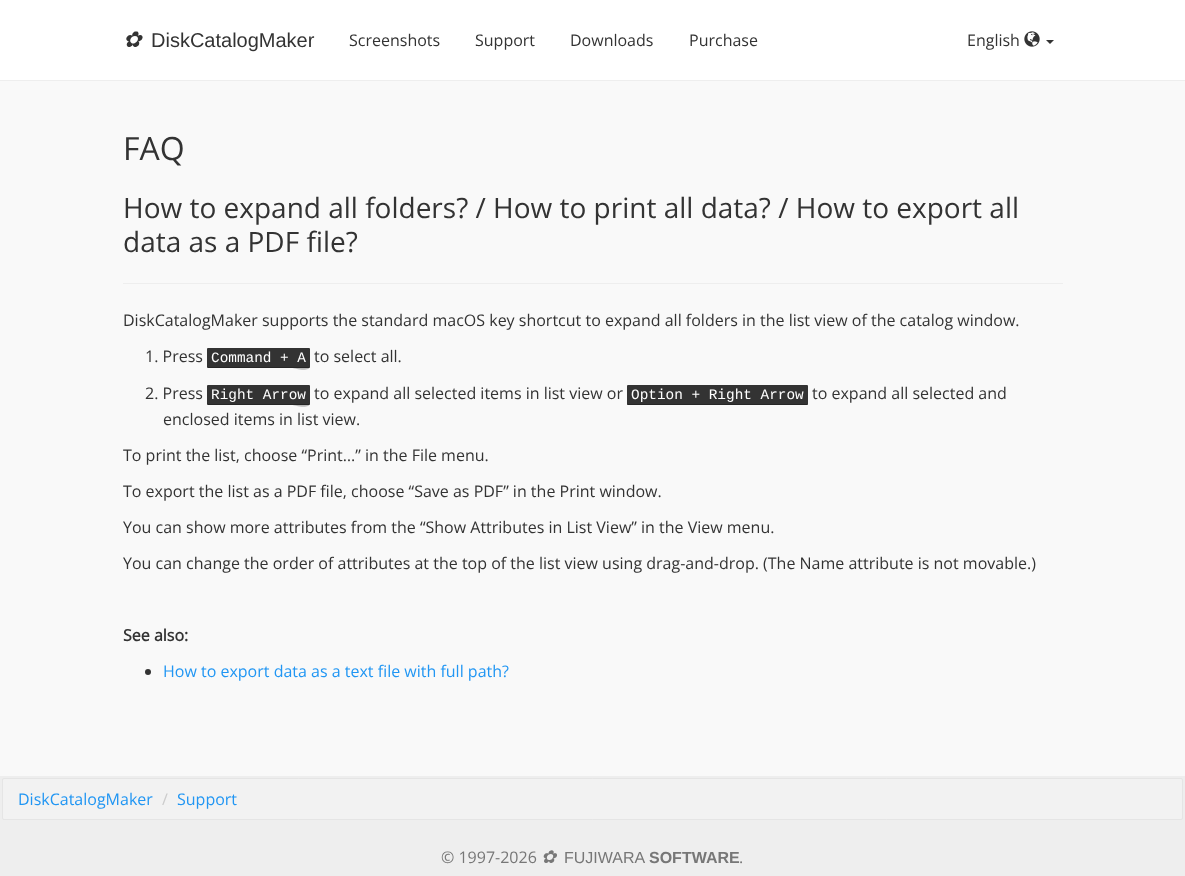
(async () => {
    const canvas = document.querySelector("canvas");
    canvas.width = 1185;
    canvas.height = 876;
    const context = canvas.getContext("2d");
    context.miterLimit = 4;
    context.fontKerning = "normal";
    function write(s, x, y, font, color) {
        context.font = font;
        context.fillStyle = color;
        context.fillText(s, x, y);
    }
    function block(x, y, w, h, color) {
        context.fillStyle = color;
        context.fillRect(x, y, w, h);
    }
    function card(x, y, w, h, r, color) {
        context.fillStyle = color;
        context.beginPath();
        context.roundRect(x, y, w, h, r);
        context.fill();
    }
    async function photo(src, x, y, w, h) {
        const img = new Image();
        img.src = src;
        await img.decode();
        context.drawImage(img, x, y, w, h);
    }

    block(0, 0, 1185, 876, "rgb(249, 249, 249)");
    block(0, 0, 1185, 80, "rgb(255, 255, 255)");
    block(0, 80, 1185, 1, "rgb(238, 238, 238)");
    write("✿", 123, 47, "italic 22px DejaVu Sans", "rgb(51, 51, 51)");
    write("DiskCatalogMaker", 151, 47, "20px Liberation Sans", "rgb(51, 51, 51)");
    write("Screenshots", 349, 46, "16px Open Sans", "rgb(51, 51, 51)");
    write("Support", 475, 46, "16px Open Sans", "rgb(51, 51, 51)");
    write("Downloads", 570, 46, "16px Open Sans", "rgb(51, 51, 51)");
    write("Purchase", 689, 46, "16px Open Sans", "rgb(51, 51, 51)");
    write("English", 967, 46, "16px Open Sans", "rgb(51, 51, 51)");
    await photo("media/1.png", 1024, 31, 16, 16);
    context.beginPath();
    context.moveTo(1046, 40);
    context.lineTo(1054, 40);
    context.lineTo(1050, 44);
    context.closePath();
    context.fill();
    write("FAQ", 123, 160, "32px Open Sans", "rgb(51, 51, 51)");
    write("How to expand all folders? / How to print all data? / How to export all", 123, 218, "28px Open Sans", "rgb(51, 51, 51)");
    write("data as a PDF file?", 123, 252, "28px Open Sans", "rgb(51, 51, 51)");
    block(123, 283, 940, 1, "rgb(238, 238, 238)");
    write("DiskCatalogMaker supports the standard macOS key shortcut to expand all folders in the list view of the catalog window.", 123, 326, "16px Open Sans", "rgb(51, 51, 51)");
    write("1. Press", 145, 362, "16px Open Sans", "rgb(51, 51, 51)");
    card(207, 348, 103, 20, 1, "rgb(51, 51, 51)");
    write("Command + A", 211, 362, "14.4px Liberation Mono", "rgb(255, 255, 255)");
    context.fillStyle = "rgba(0, 0, 0, 0.25)";
    context.beginPath();
    context.moveTo(207, 366);
    context.lineTo(208, 368);
    context.lineTo(292, 368);
    context.bezierCurveTo(293, 368, 310, 373, 310, 366);
    context.bezierCurveTo(310, 367, 310, 367, 309, 367);
    context.lineTo(208, 367);
    context.bezierCurveTo(207, 367, 207, 367, 207, 366);
    context.closePath();
    context.fill();
    write("to select all.", 314, 362, "16px Open Sans", "rgb(51, 51, 51)");
    card(207, 385, 103, 20, 1, "rgb(51, 51, 51)");
    write("Right Arrow", 211, 399, "14.4px Liberation Mono", "rgb(255, 255, 255)");
    context.fillStyle = "rgba(0, 0, 0, 0.25)";
    context.beginPath();
    context.moveTo(207, 403);
    context.lineTo(208, 405);
    context.lineTo(292, 405);
    context.bezierCurveTo(293, 405, 310, 410, 310, 403);
    context.bezierCurveTo(310, 404, 310, 404, 309, 404);
    context.lineTo(208, 404);
    context.bezierCurveTo(207, 404, 207, 404, 207, 403);
    context.closePath();
    context.fill();
    write("to expand all selected items in list view or", 314, 399, "16px Open Sans", "rgb(51, 51, 51)");
    card(627, 385, 181, 20, 1, "rgb(51, 51, 51)");
    write("Option + Right Arrow", 631, 399, "14.4px Liberation Mono", "rgb(255, 255, 255)");
    context.fillStyle = "rgba(0, 0, 0, 0.25)";
    context.beginPath();
    context.moveTo(627, 403);
    context.lineTo(627, 405);
    context.lineTo(807, 405);
    context.bezierCurveTo(808, 405, 808, 404, 808, 403);
    context.bezierCurveTo(808, 404, 808, 404, 807, 404);
    context.lineTo(627, 404);
    context.closePath();
    context.fill();
    write("to expand all selected and", 812, 399, "16px Open Sans", "rgb(51, 51, 51)");
    write("enclosed items in list view.", 163, 425, "16px Open Sans", "rgb(51, 51, 51)");
    write("2. Press", 145, 399, "16px Open Sans", "rgb(51, 51, 51)");
    write("To print the list, choose “Print…” in the File menu.", 123, 461, "16px Open Sans", "rgb(51, 51, 51)");
    write("To export the list as a PDF file, choose “Save as PDF” in the Print window.", 123, 497, "16px Open Sans", "rgb(51, 51, 51)");
    write("You can show more attributes from the “Show Attributes in List View” in the View menu.", 123, 533, "16px Open Sans", "rgb(51, 51, 51)");
    write("You can change the order of attributes at the top of the list view using drag-and-drop. (The Name attribute is not movable.)", 123, 569, "16px Open Sans", "rgb(51, 51, 51)");
    write("See also:", 123, 641, "bold 16px Open Sans", "rgb(51, 51, 51)");
    context.beginPath();
    context.arc(148, 672, 3, 0, Math.PI * 2);
    context.fill();
    write("How to export data as a text file with full path?", 163, 677, "16px Open Sans", "rgb(33, 150, 243)");
    block(0, 776, 1185, 100, "rgb(238, 238, 238)");
    context.fillStyle = "rgb(242, 242, 242)";
    context.beginPath();
    context.roundRect(2.5, 778.5, 1180, 41, 1.5);
    context.fill();
    context.strokeStyle = "rgb(229, 229, 229)";
    context.stroke();
    write("DiskCatalogMaker", 18, 805, "16px Open Sans", "rgb(33, 150, 243)");
    write("/", 162, 805, "16px Open Sans", "rgb(204, 204, 204)");
    write("Support", 177, 805, "16px Open Sans", "rgb(33, 150, 243)");
    write("© 1997-2026", 441, 863, "16px Open Sans", "rgb(119, 119, 119)");
    write("✿", 541, 863, "italic 18px DejaVu Sans", "rgb(119, 119, 119)");
    write("FUJIWARA", 564, 863, "16px Liberation Sans", "rgb(119, 119, 119)");
    write("SOFTWARE", 649, 863, "bold 16px Liberation Sans", "rgb(119, 119, 119)");
    write(".", 739, 863, "16px Open Sans", "rgb(119, 119, 119)");
})();
